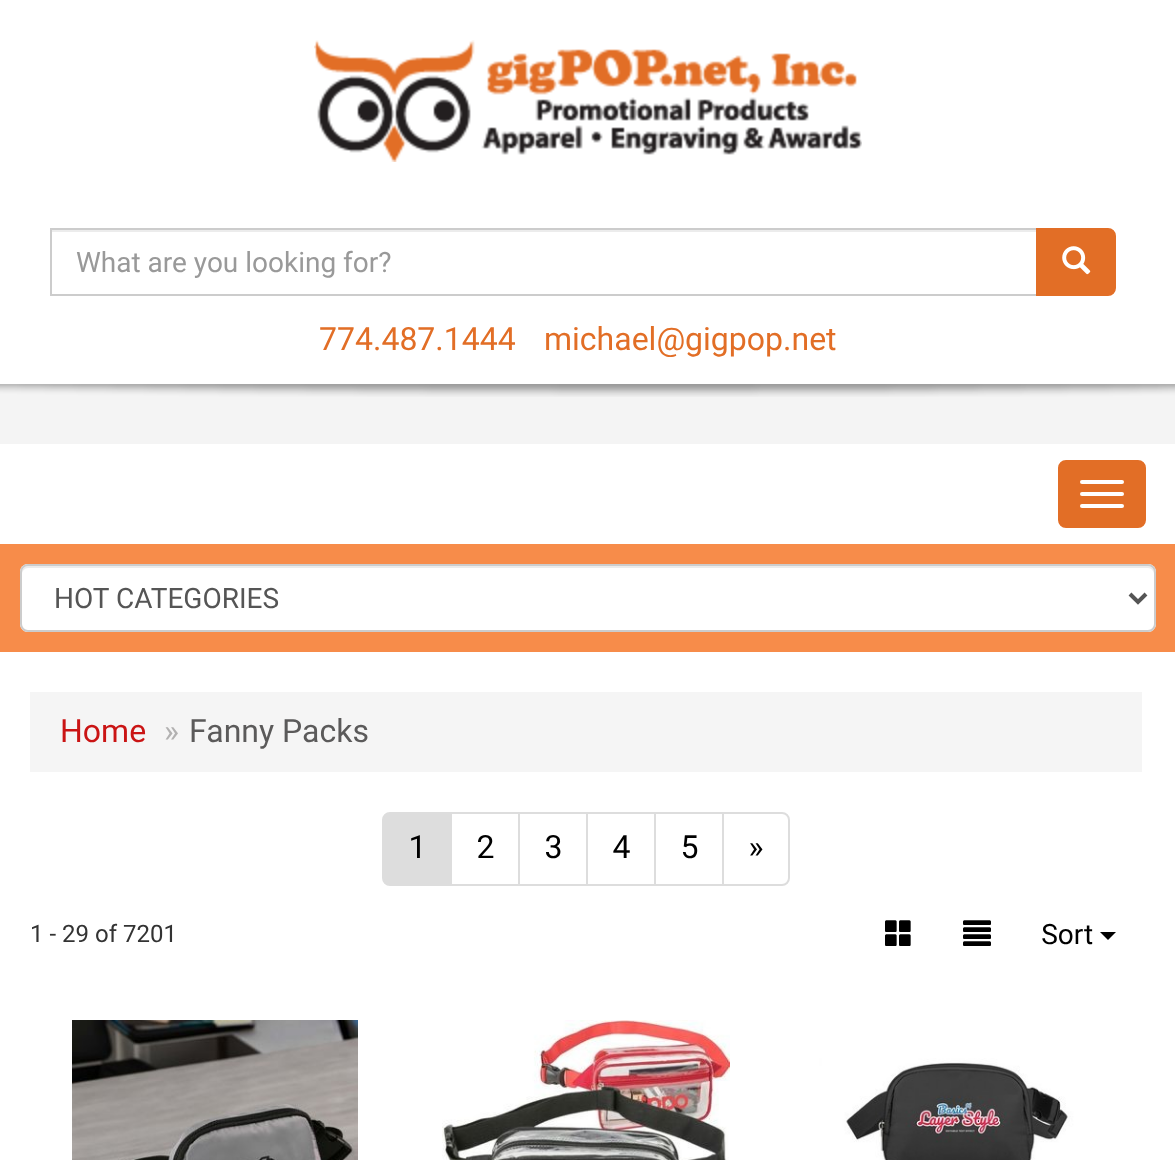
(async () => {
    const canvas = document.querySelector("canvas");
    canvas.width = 1175;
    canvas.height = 1160;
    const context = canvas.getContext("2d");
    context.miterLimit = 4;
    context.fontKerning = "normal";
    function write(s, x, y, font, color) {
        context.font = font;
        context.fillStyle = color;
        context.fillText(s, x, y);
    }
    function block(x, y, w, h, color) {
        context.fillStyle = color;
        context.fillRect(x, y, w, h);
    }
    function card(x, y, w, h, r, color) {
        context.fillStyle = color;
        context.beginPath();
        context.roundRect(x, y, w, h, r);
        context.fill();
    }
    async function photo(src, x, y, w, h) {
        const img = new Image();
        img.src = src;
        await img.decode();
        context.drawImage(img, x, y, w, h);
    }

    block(0, 0, 1175, 1160, "rgb(244, 244, 244)");
    block(0, 0, 1175, 384, "rgb(255, 255, 255)");
    await photo("media/1.png", 314, 40, 548, 122);
    block(52, 230, 984, 2, "rgb(236, 236, 236)");
    context.strokeStyle = "rgb(204, 204, 204)";
    context.lineWidth = 2;
    context.strokeRect(51, 229, 986, 66);
    write("What are you looking for?", 76, 272, "28px Roboto", "rgb(153, 153, 153)");
    context.fillStyle = "rgb(226, 110, 38)";
    context.beginPath();
    context.roundRect(1037, 229, 78, 66, [0, 7, 7, 0]);
    context.fill();
    context.strokeStyle = "rgb(226, 110, 38)";
    context.stroke();
    await photo("media/2.png", 1062, 246, 29, 29);
    write("774.487.1444", 319, 350, "32px Roboto", "rgb(226, 110, 38)");
    write("michael@gigpop.net", 544, 350, "32px Roboto", "rgb(226, 110, 38)");
    await photo("media/3.png", 0, 384, 1175, 13);
    block(0, 444, 1175, 100, "rgb(255, 255, 255)");
    context.fillStyle = "rgb(226, 110, 38)";
    context.beginPath();
    context.roundRect(1059, 461, 86, 66, 7);
    context.fill();
    context.stroke();
    card(1080, 480, 44, 4, 2, "rgb(255, 255, 255)");
    card(1080, 492, 44, 4, 2, "rgb(255, 255, 255)");
    card(1080, 504, 44, 4, 2, "rgb(255, 255, 255)");
    block(0, 652, 1175, 508, "rgb(255, 255, 255)");
    block(0, 544, 1175, 108, "rgb(247, 140, 74)");
    card(20, 564, 1136, 68, 8, "rgb(255, 255, 255)");
    context.fillStyle = "rgb(236, 236, 236)";
    context.beginPath();
    context.moveTo(28, 568);
    context.lineTo(1148, 568);
    context.bezierCurveTo(1151, 568, 1154, 571, 1154, 574);
    context.lineTo(1154, 572);
    context.bezierCurveTo(1154, 569, 1151, 566, 1148, 566);
    context.lineTo(28, 566);
    context.bezierCurveTo(25, 566, 22, 569, 22, 572);
    context.lineTo(22, 574);
    context.bezierCurveTo(22, 571, 25, 568, 28, 568);
    context.closePath();
    context.fill();
    context.beginPath();
    context.roundRect(21, 565, 1134, 66, 7);
    context.strokeStyle = "rgb(204, 204, 204)";
    context.stroke();
    context.beginPath();
    context.moveTo(1130, 594);
    context.lineTo(1138, 602);
    context.lineTo(1146, 594);
    context.strokeStyle = "rgb(85, 85, 85)";
    context.lineWidth = 4;
    context.stroke();
    write("HOT CATEGORIES", 54, 608, "28px Roboto", "rgb(85, 85, 85)");
    await photo("media/4.png", 30, 692, 1112, 468);
})();
